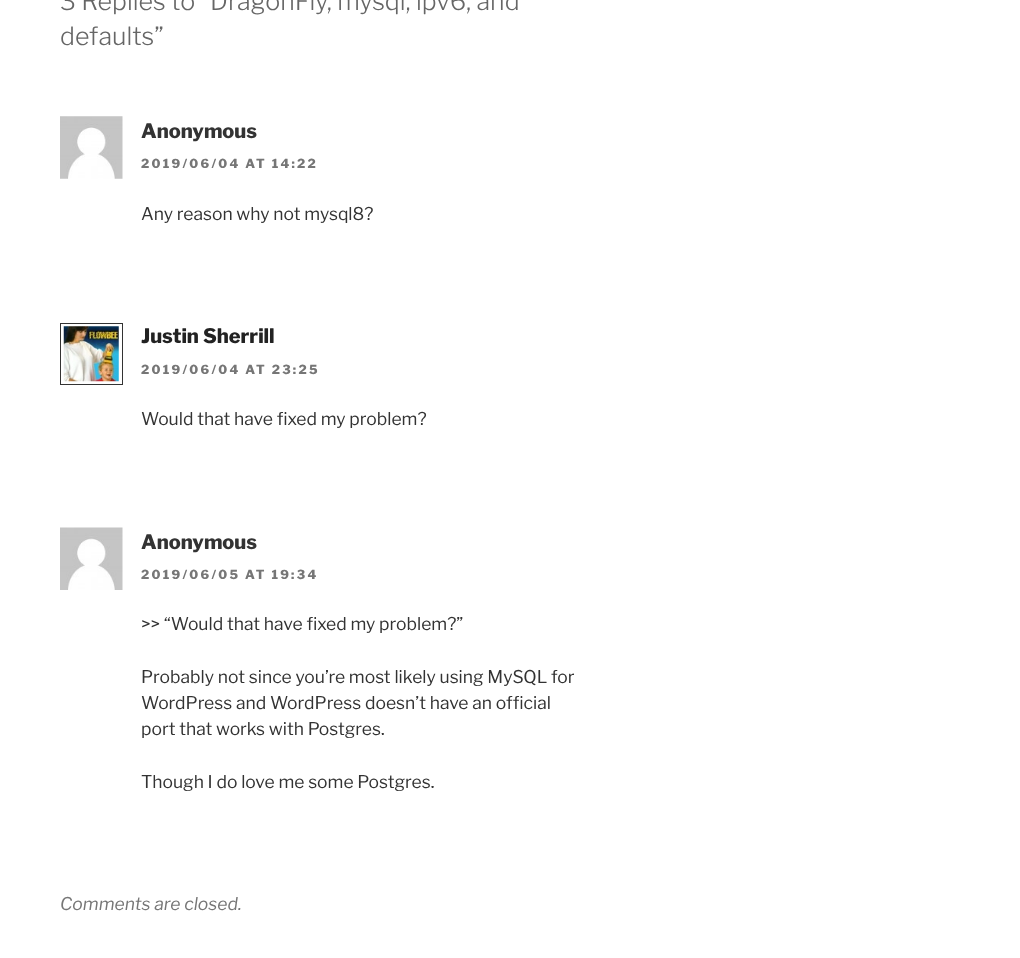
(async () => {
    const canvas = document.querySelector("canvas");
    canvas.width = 1020;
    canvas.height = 958;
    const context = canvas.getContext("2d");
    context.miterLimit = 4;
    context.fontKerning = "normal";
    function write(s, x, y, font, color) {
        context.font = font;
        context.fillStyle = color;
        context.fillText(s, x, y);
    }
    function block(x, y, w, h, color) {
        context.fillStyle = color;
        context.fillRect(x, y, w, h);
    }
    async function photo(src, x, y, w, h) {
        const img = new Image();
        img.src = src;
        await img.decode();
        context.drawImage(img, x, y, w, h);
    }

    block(0, 0, 1020, 958, "rgb(255, 255, 255)");
    write("3 Replies to “DragonFly, mysql, ipv6, and", 60, 10, "100 25px Libre Franklin", "rgb(102, 102, 102)");
    write("defaults”", 60, 45, "100 25px Libre Franklin", "rgb(102, 102, 102)");
    await photo("media/1.png", 60, 116, 63, 63);
    write("Anonymous", 141, 138, "100 20px 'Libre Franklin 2'", "rgb(51, 51, 51)");
    context.letterSpacing = "2.25px";
    write("2019/06/04 AT 14:22", 141, 168, "100 12.5px 'Libre Franklin 2'", "rgb(118, 118, 118)");
    context.letterSpacing = "0px";
    write("Any reason why not mysql8?", 141, 220, "100 17.5px 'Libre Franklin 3'", "rgb(51, 51, 51)");
    context.strokeStyle = "rgb(51, 51, 51)";
    context.strokeRect(60.5, 323.5, 62, 61);
    await photo("media/2.png", 63, 326, 56, 56);
    write("Justin Sherrill", 141, 343, "100 20px 'Libre Franklin 2'", "rgb(34, 34, 34)");
    context.letterSpacing = "2.25px";
    write("2019/06/04 AT 23:25", 141, 374, "100 12.5px 'Libre Franklin 2'", "rgb(118, 118, 118)");
    context.letterSpacing = "0px";
    write("Would that have fixed my problem?", 141, 425, "100 17.5px 'Libre Franklin 3'", "rgb(51, 51, 51)");
    await photo("media/3.png", 60, 527, 63, 63);
    write("Anonymous", 141, 549, "100 20px 'Libre Franklin 2'", "rgb(51, 51, 51)");
    context.letterSpacing = "2.25px";
    write("2019/06/05 AT 19:34", 141, 579, "100 12.5px 'Libre Franklin 2'", "rgb(118, 118, 118)");
    context.letterSpacing = "0px";
    write(">> “Would that have fixed my problem?”", 141, 630, "100 17.5px 'Libre Franklin 3'", "rgb(51, 51, 51)");
    write("Probably not since you’re most likely using MySQL for", 141, 683, "100 17.5px 'Libre Franklin 3'", "rgb(51, 51, 51)");
    write("WordPress and WordPress doesn’t have an official", 141, 709, "100 17.5px 'Libre Franklin 3'", "rgb(51, 51, 51)");
    write("port that works with Postgres.", 141, 735, "100 17.5px 'Libre Franklin 3'", "rgb(51, 51, 51)");
    write("Though I do love me some Postgres.", 141, 788, "100 17.5px 'Libre Franklin 3'", "rgb(51, 51, 51)");
    write("Comments are closed.", 60, 910, "italic 100 17.5px Libre Franklin", "rgb(118, 118, 118)");
})();
